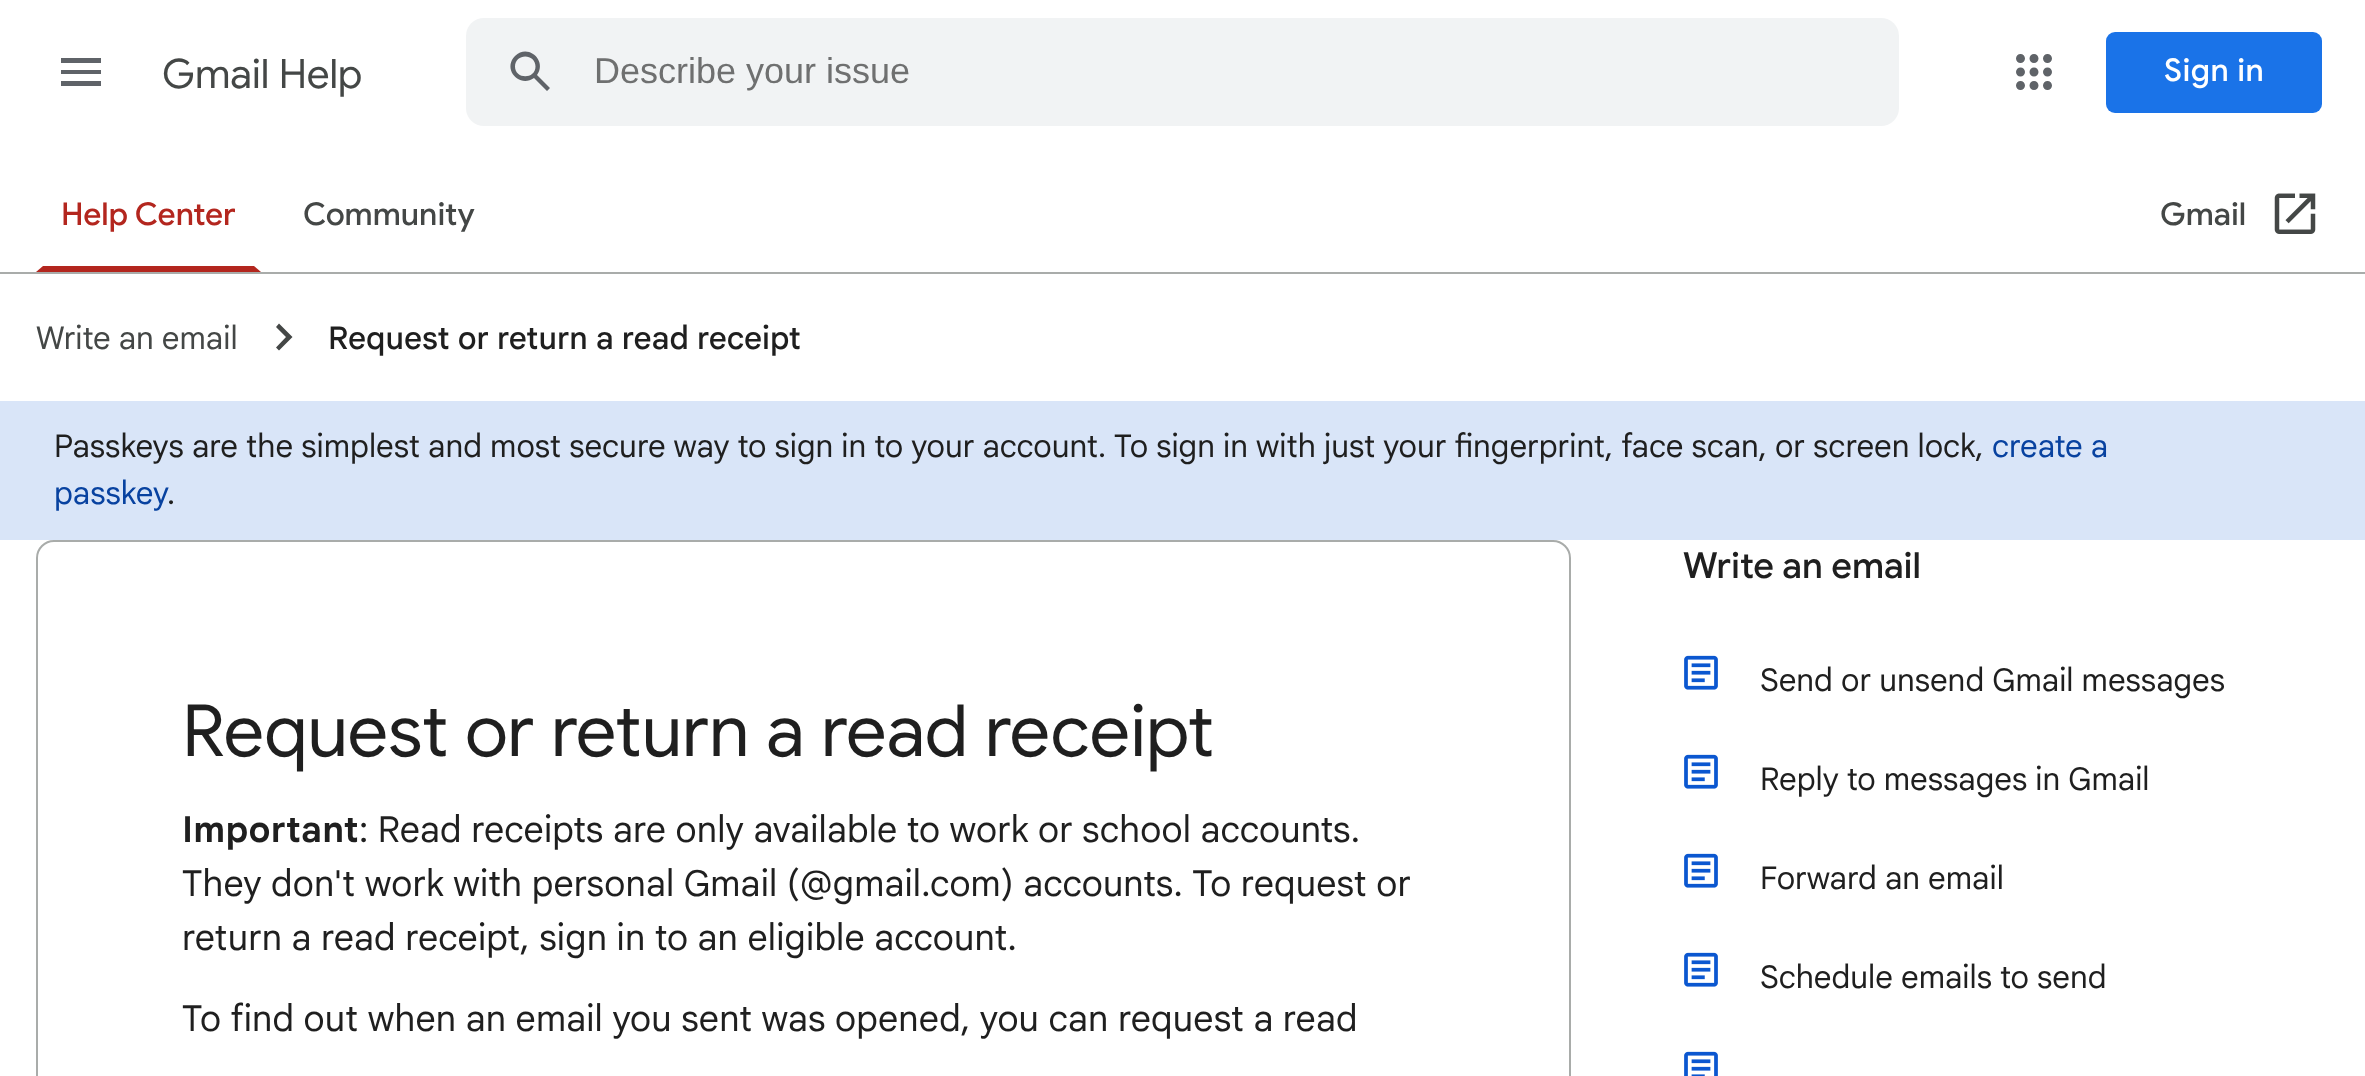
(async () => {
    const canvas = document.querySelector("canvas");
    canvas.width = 2365;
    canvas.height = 1076;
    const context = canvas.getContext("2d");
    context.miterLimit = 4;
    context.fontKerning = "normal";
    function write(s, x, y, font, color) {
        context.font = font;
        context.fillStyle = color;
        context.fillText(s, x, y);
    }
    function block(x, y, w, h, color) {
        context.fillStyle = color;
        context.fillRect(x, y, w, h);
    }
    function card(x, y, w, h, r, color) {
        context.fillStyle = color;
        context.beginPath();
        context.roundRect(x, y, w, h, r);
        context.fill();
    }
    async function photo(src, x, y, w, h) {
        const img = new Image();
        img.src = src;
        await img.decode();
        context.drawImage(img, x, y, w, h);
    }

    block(0, 0, 2365, 1076, "rgb(255, 255, 255)");
    context.fillStyle = "rgb(95, 99, 104)";
    context.beginPath();
    context.moveTo(61, 86);
    context.lineTo(101, 86);
    context.lineTo(101, 81);
    context.lineTo(61, 81);
    context.closePath();
    context.moveTo(61, 74);
    context.lineTo(101, 74);
    context.lineTo(101, 70);
    context.lineTo(61, 70);
    context.closePath();
    context.moveTo(61, 58);
    context.lineTo(61, 63);
    context.lineTo(101, 63);
    context.lineTo(101, 58);
    context.closePath();
    context.fill();
    write("Gmail Help", 162, 88, "40.5px Google Sans", "rgb(68, 71, 70)");
    card(466, 18, 1433, 108, 18, "rgb(241, 243, 244)");
    context.fillStyle = "rgb(95, 99, 104)";
    context.beginPath();
    context.moveTo(550, 88);
    context.lineTo(537, 75);
    context.bezierCurveTo(547.5, 60.5, 528, 43, 515, 56);
    context.bezierCurveTo(502, 69, 519.5, 88.5, 534, 78);
    context.lineTo(547, 91);
    context.closePath();
    context.moveTo(515, 66.5);
    context.bezierCurveTo(515, 53, 535.5, 53, 535.5, 66.5);
    context.bezierCurveTo(535.5, 79.5, 515, 79.5, 515, 66.5);
    context.closePath();
    context.fill();
    write("Describe your issue", 594, 83, "36px Liberation Sans", "rgb(111, 112, 112)");
    await photo("media/1.png", 2016, 54, 36, 36);
    card(2106, 32, 216, 81, 9, "rgb(26, 115, 232)");
    context.letterSpacing = "0.5px";
    write("Sign in", 2164, 81, "500 31.5px Google Sans", "rgb(255, 255, 255)");
    block(0, 272, 2365, 2, "rgb(169, 172, 170)");
    context.fillStyle = "rgb(179, 38, 30)";
    context.beginPath();
    context.moveTo(261, 272);
    context.lineTo(36, 272);
    context.lineTo(43, 266);
    context.lineTo(254, 266);
    context.closePath();
    context.fill();
    context.letterSpacing = "0px";
    write("Help Center", 61, 225, "500 31.5px Google Sans", "rgb(179, 38, 30)");
    write("Community", 303, 225, "500 31.5px Google Sans", "rgb(68, 71, 70)");
    write("Gmail", 2160, 225, "500 31.5px Google Sans", "rgb(68, 71, 70)");
    await photo("media/2.png", 2274, 193, 42, 41);
    write("Write an email", 36, 349, "31.5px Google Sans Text", "rgb(68, 71, 70)");
    context.beginPath();
    context.moveTo(276, 347.5);
    context.lineTo(286, 337);
    context.lineTo(276, 327);
    context.lineTo(279, 323.5);
    context.lineTo(292.5, 337);
    context.lineTo(279, 350.5);
    context.closePath();
    context.fill();
    write("Request or return a read receipt", 328, 349, "500 31.5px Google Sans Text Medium", "rgb(31, 31, 31)");
    block(0, 401, 2365, 139, "rgb(217, 229, 248)");
    write("Passkeys are the simplest and most secure way to sign in to your account. To sign in with just your fingerprint, face scan, or screen lock,", 54, 457, "31.5px Google Sans Text", "rgb(31, 31, 31)");
    write("create a", 1992, 457, "31.5px Google Sans Text", "rgb(8, 66, 160)");
    write("passkey", 54, 504, "31.5px Google Sans Text", "rgb(8, 66, 160)");
    write(".", 167, 504, "31.5px Google Sans Text", "rgb(31, 31, 31)");
    context.beginPath();
    context.roundRect(37, 541, 1533, 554, 17);
    context.strokeStyle = "rgb(169, 172, 170)";
    context.lineWidth = 2;
    context.stroke();
    write("Request or return a read receipt", 182, 756, "72px Google Sans", "rgb(31, 31, 31)");
    context.letterSpacing = "0.18px";
    write("Important", 182, 842, "bold 36px Google Sans Text", "rgb(31, 31, 31)");
    write(": Read receipts are only available to work or school accounts.", 359, 842, "36px Google Sans Text", "rgb(31, 31, 31)");
    write("They don't work with personal Gmail (@gmail.com) accounts. To request or", 182, 896, "36px Google Sans Text", "rgb(31, 31, 31)");
    write("return a read receipt, sign in to an eligible account.", 182, 950, "36px Google Sans Text", "rgb(31, 31, 31)");
    write("To find out when an email you sent was opened, you can request a read", 182, 1031, "36px Google Sans Text", "rgb(31, 31, 31)");
    context.letterSpacing = "0px";
    write("Write an email", 1683, 578, "500 36px Google Sans", "rgb(31, 31, 31)");
    await photo("media/3.png", 1684, 655, 34, 35);
    write("Send or unsend Gmail messages", 1760, 691, "31.5px Google Sans Text", "rgb(31, 31, 31)");
    await photo("media/3.png", 1684, 754, 34, 35);
    write("Reply to messages in Gmail", 1760, 790, "31.5px Google Sans Text", "rgb(31, 31, 31)");
    await photo("media/3.png", 1684, 853, 34, 35);
    write("Forward an email", 1760, 889, "31.5px Google Sans Text", "rgb(31, 31, 31)");
    await photo("media/3.png", 1684, 952, 34, 35);
    write("Schedule emails to send", 1760, 988, "31.5px Google Sans Text", "rgb(31, 31, 31)");
    await photo("media/4.png", 1684, 1051, 34, 25);
})();
